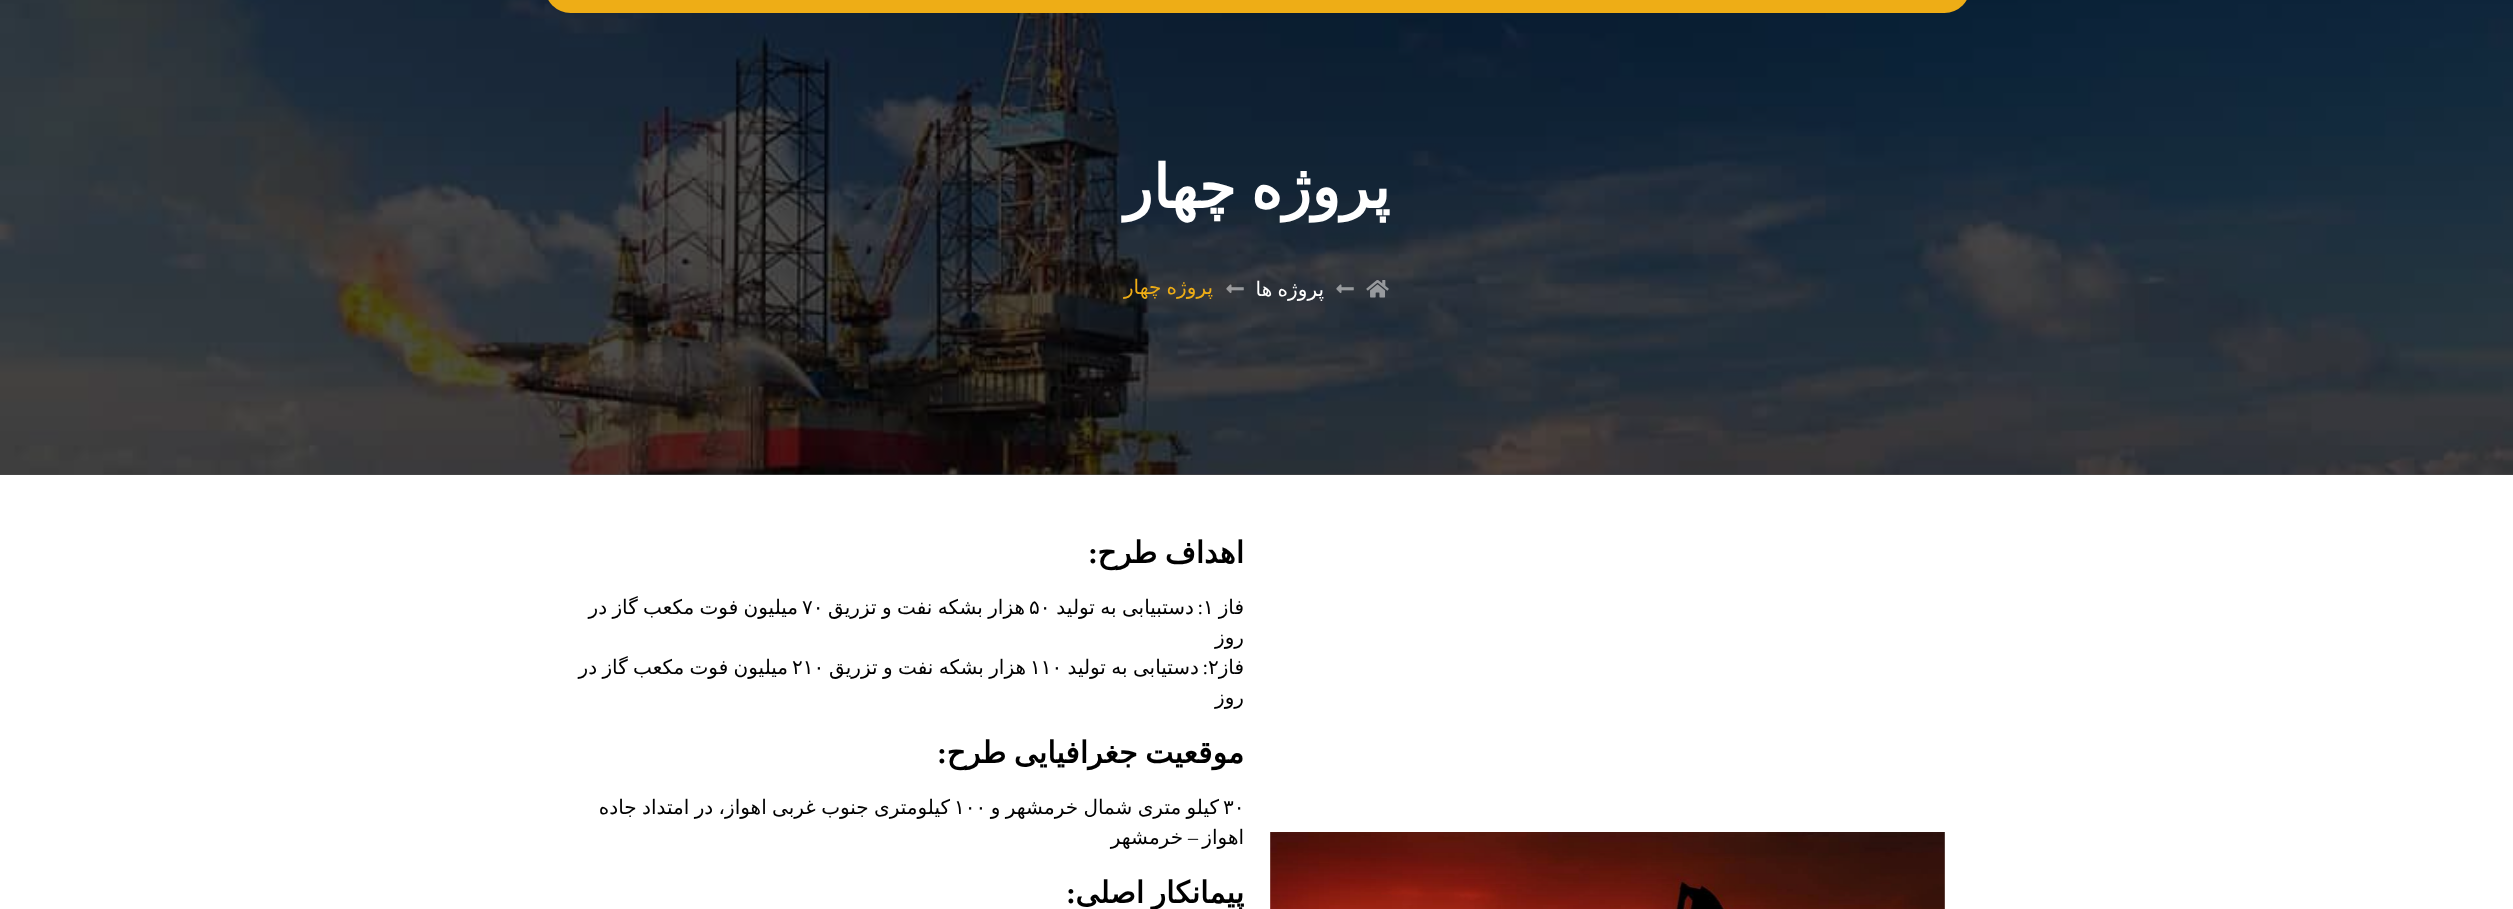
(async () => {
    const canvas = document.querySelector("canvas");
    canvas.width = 2513;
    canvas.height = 909;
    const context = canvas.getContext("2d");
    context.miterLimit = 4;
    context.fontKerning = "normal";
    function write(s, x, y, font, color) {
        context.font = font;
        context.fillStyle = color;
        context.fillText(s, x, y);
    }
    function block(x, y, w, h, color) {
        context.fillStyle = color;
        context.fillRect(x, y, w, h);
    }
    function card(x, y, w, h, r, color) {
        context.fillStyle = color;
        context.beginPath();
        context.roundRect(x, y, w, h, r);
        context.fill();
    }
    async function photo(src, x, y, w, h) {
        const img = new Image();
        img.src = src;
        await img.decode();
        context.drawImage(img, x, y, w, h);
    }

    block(0, 0, 2513, 909, "rgb(255, 255, 255)");
    block(0, 474, 2513, 1, "rgb(77, 77, 77)");
    await photo("media/1.png", 0, 0, 2513, 475);
    card(545, -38, 1425, 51, 37.5, "rgb(238, 173, 22)");
    context.wordSpacing = "-4px";
    context.direction = "rtl";
    write("پروژه چهار", 1390, 208, "bold 60px DejaVu Sans", "rgb(255, 255, 255)");
    await photo("media/2.png", 1366, 280, 23, 18);
    await photo("media/3.png", 1336, 284, 18, 9);
    context.wordSpacing = "-1px";
    write("پروژه ها", 1324, 296, "20px DejaVu Sans", "rgb(255, 255, 255)");
    await photo("media/4.png", 1226, 284, 18, 9);
    write("پروژه چهار", 1213, 294, "20px DejaVu Sans", "rgb(238, 173, 22)");
    await photo("media/5.png", 1270, 832, 675, 77);
    context.wordSpacing = "-2px";
    write("اهداف طرح", 1244, 563, "bold 30px DejaVu Sans", "rgb(0, 0, 0)");
    context.wordSpacing = "0px";
    write(":", 1098, 563, "bold 30px Liberation Serif", "rgb(0, 0, 0)");
    write("فاز", 1244, 614, "20px DejaVu Sans", "rgb(0, 0, 0)");
    context.direction = "ltr";
    write("۱", 1203, 614, "20px DejaVu Sans", "rgb(0, 0, 0)");
    context.direction = "rtl";
    write(":", 1203, 614, "20px Liberation Serif", "rgb(0, 0, 0)");
    context.wordSpacing = "-1px";
    write("دستبیابی به تولید", 1194, 614, "20px DejaVu Sans", "rgb(0, 0, 0)");
    context.wordSpacing = "0px";
    context.direction = "ltr";
    write("۵۰", 1029, 614, "20px DejaVu Sans", "rgb(0, 0, 0)");
    context.wordSpacing = "-1px";
    context.direction = "rtl";
    write("هزار بشکه نفت و تزریق", 1025, 614, "20px DejaVu Sans", "rgb(0, 0, 0)");
    context.wordSpacing = "0px";
    context.direction = "ltr";
    write("۷۰", 802, 614, "20px DejaVu Sans", "rgb(0, 0, 0)");
    context.wordSpacing = "-1px";
    context.direction = "rtl";
    write("میلیون فوت مکعب گاز در", 798, 614, "20px DejaVu Sans", "rgb(0, 0, 0)");
    context.wordSpacing = "0px";
    write("روز", 1244, 644, "20px DejaVu Sans", "rgb(0, 0, 0)");
    context.direction = "ltr";
    write("۲", 1208, 674, "20px DejaVu Sans", "rgb(0, 0, 0)");
    context.direction = "rtl";
    write("فاز", 1244, 674, "20px DejaVu Sans", "rgb(0, 0, 0)");
    write(":", 1208, 674, "20px Liberation Serif", "rgb(0, 0, 0)");
    context.wordSpacing = "-1px";
    write("دستیابی به تولید", 1199, 674, "20px DejaVu Sans", "rgb(0, 0, 0)");
    context.wordSpacing = "0px";
    context.direction = "ltr";
    write("۱۱۰", 1030, 674, "20px DejaVu Sans", "rgb(0, 0, 0)");
    context.wordSpacing = "-1px";
    context.direction = "rtl";
    write("هزار بشکه نفت و تزریق", 1026, 674, "20px DejaVu Sans", "rgb(0, 0, 0)");
    context.wordSpacing = "0px";
    context.direction = "ltr";
    write("۲۱۰", 792, 674, "20px DejaVu Sans", "rgb(0, 0, 0)");
    context.wordSpacing = "-1px";
    context.direction = "rtl";
    write("میلیون فوت مکعب گاز در", 788, 674, "20px DejaVu Sans", "rgb(0, 0, 0)");
    context.wordSpacing = "0px";
    write("روز", 1244, 704, "20px DejaVu Sans", "rgb(0, 0, 0)");
    context.wordSpacing = "-2px";
    write("موقعیت جغرافیایی طرح", 1244, 763, "bold 30px DejaVu Sans", "rgb(0, 0, 0)");
    context.wordSpacing = "0px";
    write(":", 947, 763, "bold 30px Liberation Serif", "rgb(0, 0, 0)");
    context.direction = "ltr";
    write("۳۰", 1223, 814, "20px DejaVu Sans", "rgb(0, 0, 0)");
    context.wordSpacing = "-1px";
    context.direction = "rtl";
    write("کیلو متری شمال خرمشهر و", 1219, 814, "20px DejaVu Sans", "rgb(0, 0, 0)");
    context.wordSpacing = "0px";
    context.direction = "ltr";
    write("۱۰۰", 954, 814, "20px DejaVu Sans", "rgb(0, 0, 0)");
    context.wordSpacing = "-1px";
    context.direction = "rtl";
    write("کیلومتری جنوب غربی اهواز، در امتداد جاده", 950, 814, "20px DejaVu Sans", "rgb(0, 0, 0)");
    context.wordSpacing = "0px";
    write("اهواز", 1244, 844, "20px DejaVu Sans", "rgb(0, 0, 0)");
    write("–", 1198, 844, "20px Liberation Serif", "rgb(0, 0, 0)");
    write("خرمشهر", 1183, 844, "20px DejaVu Sans", "rgb(0, 0, 0)");
    context.wordSpacing = "-2px";
    write("پیمانکار اصلی", 1244, 903, "bold 30px DejaVu Sans", "rgb(0, 0, 0)");
    context.wordSpacing = "0px";
    write(":", 1076, 903, "bold 30px Liberation Serif", "rgb(0, 0, 0)");
})();
